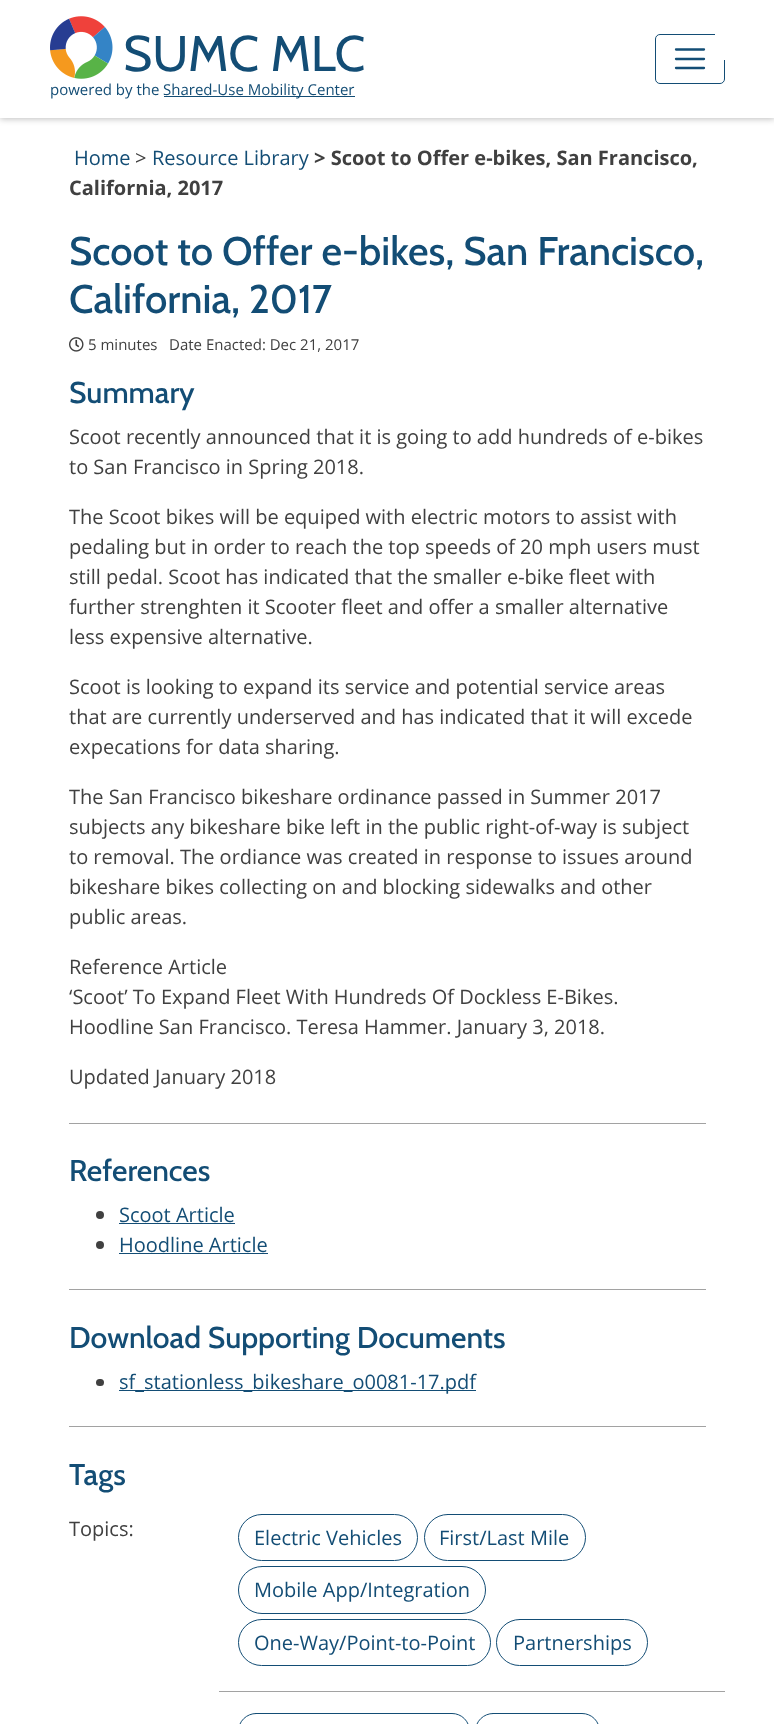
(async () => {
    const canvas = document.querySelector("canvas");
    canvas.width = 774;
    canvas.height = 1724;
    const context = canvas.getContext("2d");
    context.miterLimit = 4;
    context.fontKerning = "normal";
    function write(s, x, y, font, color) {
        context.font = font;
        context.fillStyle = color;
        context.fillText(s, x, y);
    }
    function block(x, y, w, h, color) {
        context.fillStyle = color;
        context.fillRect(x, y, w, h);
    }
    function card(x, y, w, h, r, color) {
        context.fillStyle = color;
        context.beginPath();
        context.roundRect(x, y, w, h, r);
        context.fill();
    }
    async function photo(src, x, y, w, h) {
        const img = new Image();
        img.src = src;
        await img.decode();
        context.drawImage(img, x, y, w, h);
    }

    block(0, 0, 774, 1724, "rgb(255, 255, 255)");
    context.save();
    context.beginPath();
    context.moveTo(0, 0);
    context.lineTo(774, 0);
    context.lineTo(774, 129);
    context.lineTo(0, 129);
    context.closePath();
    context.moveTo(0, 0);
    context.lineTo(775, 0);
    context.lineTo(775, 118);
    context.lineTo(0, 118);
    context.closePath();
    context.clip("evenodd");
    context.fillStyle = "rgba(0, 0, 0, 0.25)";
    context.filter = "blur(3px)";
    context.beginPath();
    context.rect(0, 1, 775, 118);
    context.fill();
    context.filter = "none";
    context.restore();
    await photo("media/1.png", 50, 16, 63, 63);
    write("SUMC MLC", 123, 71, "50px Cabin", "rgb(19, 77, 117)");
    write("powered by the", 50, 95, "15px Open Sans", "rgb(19, 77, 117)");
    block(164, 96, 191, 1, "rgb(19, 77, 117)");
    write("Shared-Use Mobility Center", 163, 95, "15px Open Sans", "rgb(19, 77, 117)");
    context.beginPath();
    context.roundRect(655.5, 34.5, 69, 49, 4.5);
    context.strokeStyle = "rgb(19, 77, 117)";
    context.stroke();
    context.beginPath();
    context.moveTo(676, 49.5);
    context.lineTo(704, 49.5);
    context.moveTo(676, 59);
    context.lineTo(704, 59);
    context.moveTo(676, 68);
    context.lineTo(704, 68);
    context.lineWidth = 2.3;
    context.lineCap = "round";
    context.stroke();
    block(715, 34, 10, 26, "rgb(255, 255, 255)");
    write("Home", 74, 165, "20px Open Sans", "rgb(19, 77, 117)");
    write(">", 135, 165, "20px Open Sans", "rgb(64, 64, 64)");
    write("Resource Library", 152, 165, "20px Open Sans", "rgb(19, 77, 117)");
    write("> Scoot to Offer e-bikes, San Francisco,", 314, 165, "bold 20px Open Sans", "rgb(64, 64, 64)");
    write("California, 2017", 69, 195, "bold 20px Open Sans", "rgb(64, 64, 64)");
    write("Scoot to Offer e-bikes, San Francisco,", 69, 265, "500 40px Cabin", "rgb(19, 77, 117)");
    write("California, 2017", 69, 313, "500 40px Cabin", "rgb(19, 77, 117)");
    await photo("media/2.png", 69, 337, 15, 15);
    write("5 minutes", 88, 350, "15px Open Sans", "rgb(64, 64, 64)");
    write("Date Enacted: Dec 21, 2017", 169, 350, "15px Open Sans", "rgb(64, 64, 64)");
    block(69, 1123, 637, 1, "rgb(162, 162, 162)");
    write("Summary", 69, 403, "500 30px Cabin", "rgb(19, 77, 117)");
    write("Scoot recently announced that it is going to add hundreds of e-bikes", 69, 444, "20px Open Sans", "rgb(64, 64, 64)");
    write("to San Francisco in Spring 2018.", 69, 474, "20px Open Sans", "rgb(64, 64, 64)");
    write("The Scoot bikes will be equiped with electric motors to assist with", 69, 524, "20px Open Sans", "rgb(64, 64, 64)");
    write("pedaling but in order to reach the top speeds of 20 mph users must", 69, 554, "20px Open Sans", "rgb(64, 64, 64)");
    write("still pedal. Scoot has indicated that the smaller e-bike fleet with", 69, 584, "20px Open Sans", "rgb(64, 64, 64)");
    write("further strenghten it Scooter fleet and offer a smaller alternative", 69, 614, "20px Open Sans", "rgb(64, 64, 64)");
    write("less expensive alternative.", 69, 644, "20px Open Sans", "rgb(64, 64, 64)");
    write("Scoot is looking to expand its service and potential service areas", 69, 694, "20px Open Sans", "rgb(64, 64, 64)");
    write("that are currently underserved and has indicated that it will excede", 69, 724, "20px Open Sans", "rgb(64, 64, 64)");
    write("expecations for data sharing.", 69, 754, "20px Open Sans", "rgb(64, 64, 64)");
    write("The San Francisco bikeshare ordinance passed in Summer 2017", 69, 804, "20px Open Sans", "rgb(64, 64, 64)");
    write("subjects any bikeshare bike left in the public right-of-way is subject", 69, 834, "20px Open Sans", "rgb(64, 64, 64)");
    write("to removal. The ordiance was created in response to issues around", 69, 864, "20px Open Sans", "rgb(64, 64, 64)");
    write("bikeshare bikes collecting on and blocking sidewalks and other", 69, 894, "20px Open Sans", "rgb(64, 64, 64)");
    write("public areas.", 69, 924, "20px Open Sans", "rgb(64, 64, 64)");
    write("Reference Article", 69, 974, "20px Open Sans", "rgb(64, 64, 64)");
    write("‘Scoot’ To Expand Fleet With Hundreds Of Dockless E-Bikes.", 69, 1004, "20px Open Sans", "rgb(64, 64, 64)");
    write("Hoodline San Francisco. Teresa Hammer. January 3, 2018.", 69, 1034, "20px Open Sans", "rgb(64, 64, 64)");
    write("Updated January 2018", 69, 1084, "20px Open Sans", "rgb(64, 64, 64)");
    block(69, 1289, 637, 1, "rgb(162, 162, 162)");
    write("References", 69, 1181, "500 30px Cabin", "rgb(19, 77, 117)");
    context.fillStyle = "rgb(64, 64, 64)";
    context.beginPath();
    context.arc(100, 1215, 4, 0, Math.PI * 2);
    context.fill();
    write("Scoot Article", 119, 1222, "20px Open Sans", "rgb(19, 77, 117)");
    block(119, 1223, 116, 1, "rgb(19, 77, 117)");
    context.fillStyle = "rgb(64, 64, 64)";
    context.beginPath();
    context.arc(100, 1245, 4, 0, Math.PI * 2);
    context.fill();
    write("Hoodline Article", 119, 1252, "20px Open Sans", "rgb(19, 77, 117)");
    block(119, 1253, 149, 1, "rgb(19, 77, 117)");
    block(69, 1426, 637, 1, "rgb(162, 162, 162)");
    write("Download Supporting Documents", 69, 1348, "500 30px Cabin", "rgb(19, 77, 117)");
    card(96, 1379, 8, 7, 3.5, "rgb(64, 64, 64)");
    block(119, 1390, 357, 1, "rgb(19, 77, 117)");
    write("sf_stationless_bikeshare_o0081-17.pdf", 119, 1389, "20px Open Sans", "rgb(19, 77, 117)");
    write("Tags", 69, 1485, "500 30px Cabin", "rgb(19, 77, 117)");
    write("Topics:", 69, 1536, "20px Open Sans", "rgb(64, 64, 64)");
    block(219, 1691, 506, 1, "rgb(162, 162, 162)");
    context.beginPath();
    context.roundRect(238.5, 1514.5, 179, 46, 23);
    context.lineWidth = 1;
    context.stroke();
    write("Electric Vehicles", 254, 1545, "20px Open Sans", "rgb(19, 77, 117)");
    context.beginPath();
    context.roundRect(424.5, 1514.5, 161, 46, 23);
    context.stroke();
    write("First/Last Mile", 439, 1545, "20px Open Sans", "rgb(19, 77, 117)");
    context.beginPath();
    context.roundRect(238.5, 1566.5, 247, 47, 23.5);
    context.stroke();
    write("Mobile App/Integration", 254, 1597, "20px Open Sans", "rgb(19, 77, 117)");
    context.beginPath();
    context.roundRect(238.5, 1619.5, 252, 46, 23);
    context.stroke();
    write("One-Way/Point-to-Point", 254, 1650, "20px Open Sans", "rgb(19, 77, 117)");
    context.beginPath();
    context.roundRect(496.5, 1619.5, 151, 46, 23);
    context.stroke();
    write("Partnerships", 513, 1650, "20px Open Sans", "rgb(19, 77, 117)");
    context.beginPath();
    context.roundRect(238.5, 1713.5, 231, 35, 23);
    context.stroke();
    context.beginPath();
    context.roundRect(475.5, 1713.5, 124, 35, 23);
    context.stroke();
})();
